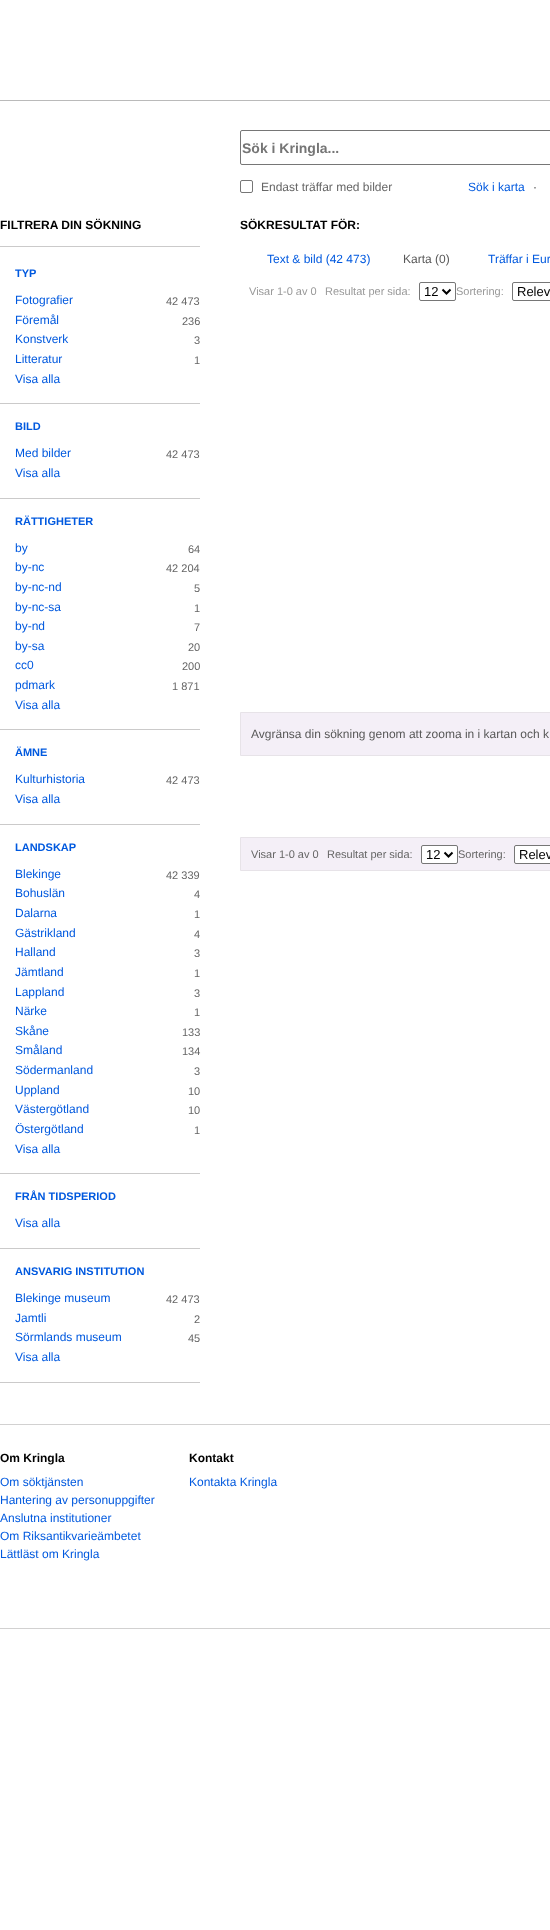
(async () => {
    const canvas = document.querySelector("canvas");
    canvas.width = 550;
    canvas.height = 1930;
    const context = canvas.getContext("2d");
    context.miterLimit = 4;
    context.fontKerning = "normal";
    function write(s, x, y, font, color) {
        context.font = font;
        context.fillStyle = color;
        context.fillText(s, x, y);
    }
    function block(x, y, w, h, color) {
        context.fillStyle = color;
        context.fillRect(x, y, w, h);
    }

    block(0, 0, 550, 1930, "rgb(255, 255, 255)");
    block(0, 100, 550, 1, "rgb(186, 186, 186)");
    context.beginPath();
    context.roundRect(240.5, 130.5, 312, 34, 1.5);
    context.strokeStyle = "rgb(118, 118, 118)";
    context.stroke();
    write("Sök i Kringla...", 242, 153, "bold 14px Liberation Sans", "rgb(117, 117, 117)");
    context.beginPath();
    context.roundRect(240.5, 180.5, 12, 12, 1.5);
    context.stroke();
    write("Endast träffar med bilder", 261, 191, "12px Liberation Sans", "rgb(102, 102, 102)");
    write("Sök i karta", 468, 191, "12px Liberation Sans", "rgb(0, 89, 223)");
    write("·", 533, 191, "12px Liberation Sans", "rgb(88, 88, 88)");
    block(0, 246, 200, 1, "rgb(203, 202, 202)");
    write("FILTRERA DIN SÖKNING", 0, 229, "bold 12px Liberation Sans", "rgb(0, 0, 0)");
    block(0, 403, 200, 1, "rgb(203, 202, 202)");
    write("TYP", 15, 277, "bold 11px Liberation Sans", "rgb(0, 89, 223)");
    write("Fotografier", 15, 304, "12px Liberation Sans", "rgb(0, 89, 223)");
    write("42 473", 166, 305, "11px Liberation Sans", "rgb(102, 102, 102)");
    write("Föremål", 15, 324, "12px Liberation Sans", "rgb(0, 89, 223)");
    write("236", 182, 325, "11px Liberation Sans", "rgb(102, 102, 102)");
    write("Konstverk", 15, 343, "12px Liberation Sans", "rgb(0, 89, 223)");
    write("3", 194, 344, "11px Liberation Sans", "rgb(102, 102, 102)");
    write("Litteratur", 15, 363, "12px Liberation Sans", "rgb(0, 89, 223)");
    write("1", 194, 364, "11px Liberation Sans", "rgb(102, 102, 102)");
    write("Visa alla", 15, 383, "12px Liberation Sans", "rgb(0, 89, 223)");
    block(0, 498, 200, 1, "rgb(203, 202, 202)");
    write("BILD", 15, 430, "bold 11px Liberation Sans", "rgb(0, 89, 223)");
    write("Med bilder", 15, 457, "12px Liberation Sans", "rgb(0, 89, 223)");
    write("42 473", 166, 458, "11px Liberation Sans", "rgb(102, 102, 102)");
    write("Visa alla", 15, 477, "12px Liberation Sans", "rgb(0, 89, 223)");
    block(0, 729, 200, 1, "rgb(203, 202, 202)");
    write("RÄTTIGHETER", 15, 525, "bold 11px Liberation Sans", "rgb(0, 89, 223)");
    write("by", 15, 552, "12px Liberation Sans", "rgb(0, 89, 223)");
    write("64", 188, 553, "11px Liberation Sans", "rgb(102, 102, 102)");
    write("by-nc", 15, 571, "12px Liberation Sans", "rgb(0, 89, 223)");
    write("42 204", 166, 572, "11px Liberation Sans", "rgb(102, 102, 102)");
    write("by-nc-nd", 15, 591, "12px Liberation Sans", "rgb(0, 89, 223)");
    write("5", 194, 592, "11px Liberation Sans", "rgb(102, 102, 102)");
    write("by-nc-sa", 15, 611, "12px Liberation Sans", "rgb(0, 89, 223)");
    write("1", 194, 612, "11px Liberation Sans", "rgb(102, 102, 102)");
    write("by-nd", 15, 630, "12px Liberation Sans", "rgb(0, 89, 223)");
    write("7", 194, 631, "11px Liberation Sans", "rgb(102, 102, 102)");
    write("by-sa", 15, 650, "12px Liberation Sans", "rgb(0, 89, 223)");
    write("20", 188, 651, "11px Liberation Sans", "rgb(102, 102, 102)");
    write("cc0", 15, 669, "12px Liberation Sans", "rgb(0, 89, 223)");
    write("200", 182, 670, "11px Liberation Sans", "rgb(102, 102, 102)");
    write("pdmark", 15, 689, "12px Liberation Sans", "rgb(0, 89, 223)");
    write("1 871", 172, 690, "11px Liberation Sans", "rgb(102, 102, 102)");
    write("Visa alla", 15, 709, "12px Liberation Sans", "rgb(0, 89, 223)");
    block(0, 824, 200, 1, "rgb(203, 202, 202)");
    write("ÄMNE", 15, 756, "bold 11px Liberation Sans", "rgb(0, 89, 223)");
    write("Kulturhistoria", 15, 783, "12px Liberation Sans", "rgb(0, 89, 223)");
    write("42 473", 166, 784, "11px Liberation Sans", "rgb(102, 102, 102)");
    write("Visa alla", 15, 803, "12px Liberation Sans", "rgb(0, 89, 223)");
    block(0, 1173, 200, 1, "rgb(203, 202, 202)");
    write("LANDSKAP", 15, 851, "bold 11px Liberation Sans", "rgb(0, 89, 223)");
    write("Blekinge", 15, 878, "12px Liberation Sans", "rgb(0, 89, 223)");
    write("42 339", 166, 879, "11px Liberation Sans", "rgb(102, 102, 102)");
    write("Bohuslän", 15, 897, "12px Liberation Sans", "rgb(0, 89, 223)");
    write("4", 194, 898, "11px Liberation Sans", "rgb(102, 102, 102)");
    write("Dalarna", 15, 917, "12px Liberation Sans", "rgb(0, 89, 223)");
    write("1", 194, 918, "11px Liberation Sans", "rgb(102, 102, 102)");
    write("Gästrikland", 15, 937, "12px Liberation Sans", "rgb(0, 89, 223)");
    write("4", 194, 938, "11px Liberation Sans", "rgb(102, 102, 102)");
    write("Halland", 15, 956, "12px Liberation Sans", "rgb(0, 89, 223)");
    write("3", 194, 957, "11px Liberation Sans", "rgb(102, 102, 102)");
    write("Jämtland", 15, 976, "12px Liberation Sans", "rgb(0, 89, 223)");
    write("1", 194, 977, "11px Liberation Sans", "rgb(102, 102, 102)");
    write("Lappland", 15, 996, "12px Liberation Sans", "rgb(0, 89, 223)");
    write("3", 194, 997, "11px Liberation Sans", "rgb(102, 102, 102)");
    write("Närke", 15, 1015, "12px Liberation Sans", "rgb(0, 89, 223)");
    write("1", 194, 1016, "11px Liberation Sans", "rgb(102, 102, 102)");
    write("Skåne", 15, 1035, "12px Liberation Sans", "rgb(0, 89, 223)");
    write("133", 182, 1036, "11px Liberation Sans", "rgb(102, 102, 102)");
    write("Småland", 15, 1054, "12px Liberation Sans", "rgb(0, 89, 223)");
    write("134", 182, 1055, "11px Liberation Sans", "rgb(102, 102, 102)");
    write("Södermanland", 15, 1074, "12px Liberation Sans", "rgb(0, 89, 223)");
    write("3", 194, 1075, "11px Liberation Sans", "rgb(102, 102, 102)");
    write("Uppland", 15, 1094, "12px Liberation Sans", "rgb(0, 89, 223)");
    write("10", 188, 1095, "11px Liberation Sans", "rgb(102, 102, 102)");
    write("Västergötland", 15, 1113, "12px Liberation Sans", "rgb(0, 89, 223)");
    write("10", 188, 1114, "11px Liberation Sans", "rgb(102, 102, 102)");
    write("Östergötland", 15, 1133, "12px Liberation Sans", "rgb(0, 89, 223)");
    write("1", 194, 1134, "11px Liberation Sans", "rgb(102, 102, 102)");
    write("Visa alla", 15, 1153, "12px Liberation Sans", "rgb(0, 89, 223)");
    block(0, 1248, 200, 1, "rgb(203, 202, 202)");
    write("FRÅN TIDSPERIOD", 15, 1200, "bold 11px Liberation Sans", "rgb(0, 89, 223)");
    write("Visa alla", 15, 1227, "12px Liberation Sans", "rgb(0, 89, 223)");
    block(0, 1382, 200, 1, "rgb(203, 202, 202)");
    write("ANSVARIG INSTITUTION", 15, 1275, "bold 11px Liberation Sans", "rgb(0, 89, 223)");
    write("Blekinge museum", 15, 1302, "12px Liberation Sans", "rgb(0, 89, 223)");
    write("42 473", 166, 1303, "11px Liberation Sans", "rgb(102, 102, 102)");
    write("Jamtli", 15, 1322, "12px Liberation Sans", "rgb(0, 89, 223)");
    write("2", 194, 1323, "11px Liberation Sans", "rgb(102, 102, 102)");
    write("Sörmlands museum", 15, 1341, "12px Liberation Sans", "rgb(0, 89, 223)");
    write("45", 188, 1342, "11px Liberation Sans", "rgb(102, 102, 102)");
    write("Visa alla", 15, 1361, "12px Liberation Sans", "rgb(0, 89, 223)");
    write("SÖKRESULTAT FÖR:", 240, 229, "bold 12px Liberation Sans", "rgb(0, 0, 0)");
    write("Text & bild (42 473)", 267, 263, "12px Liberation Sans", "rgb(0, 89, 223)");
    write("Karta (0)", 403, 263, "12px Liberation Sans", "rgb(88, 88, 88)");
    write("Träffar i Eur", 488, 263, "12px Liberation Sans", "rgb(0, 89, 223)");
    write("Visar 1-0 av 0", 249, 295, "11px Liberation Sans", "rgb(153, 153, 153)");
    write("Resultat per sida:", 325, 295, "11px Liberation Sans", "rgb(153, 153, 153)");
    context.beginPath();
    context.roundRect(419.5, 282.5, 36, 18, 1.5);
    context.stroke();
    context.beginPath();
    context.moveTo(442.5, 289.5);
    context.lineTo(446.5, 293.5);
    context.lineTo(450.5, 289.5);
    context.strokeStyle = "rgb(0, 0, 0)";
    context.lineWidth = 2;
    context.stroke();
    write("12", 424, 296, "13px Liberation Sans", "rgb(0, 0, 0)");
    write("Sortering:", 456, 295, "11px Liberation Sans", "rgb(153, 153, 153)");
    context.beginPath();
    context.roundRect(512.5, 282.5, 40, 18, 1.5);
    context.strokeStyle = "rgb(118, 118, 118)";
    context.lineWidth = 1;
    context.stroke();
    write("Relev", 517, 296, "13px Liberation Sans", "rgb(0, 0, 0)");
    context.fillStyle = "rgb(244, 239, 247)";
    context.beginPath();
    context.rect(240.5, 712.5, 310, 43);
    context.fill();
    context.strokeStyle = "rgb(231, 227, 232)";
    context.stroke();
    write("Avgränsa din sökning genom att zooma in i kartan och k", 251, 738, "12px Liberation Sans", "rgb(88, 88, 88)");
    context.fillStyle = "rgb(244, 239, 247)";
    context.beginPath();
    context.rect(240.5, 837.5, 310, 33);
    context.fill();
    context.stroke();
    write("Visar 1-0 av 0", 251, 858, "11px Liberation Sans", "rgb(102, 102, 102)");
    write("Resultat per sida:", 327, 858, "11px Liberation Sans", "rgb(102, 102, 102)");
    context.fillStyle = "rgb(255, 255, 255)";
    context.beginPath();
    context.roundRect(421.5, 845.5, 36, 18, 1.5);
    context.fill();
    context.strokeStyle = "rgb(118, 118, 118)";
    context.stroke();
    context.beginPath();
    context.moveTo(444.5, 852.5);
    context.lineTo(448.5, 856.5);
    context.lineTo(452.5, 852.5);
    context.strokeStyle = "rgb(0, 0, 0)";
    context.lineWidth = 2;
    context.stroke();
    write("12", 426, 859, "13px Liberation Sans", "rgb(0, 0, 0)");
    write("Sortering:", 458, 858, "11px Liberation Sans", "rgb(102, 102, 102)");
    context.fillStyle = "rgb(255, 255, 255)";
    context.beginPath();
    context.roundRect(514.5, 845.5, 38, 18, 1.5);
    context.fill();
    context.strokeStyle = "rgb(118, 118, 118)";
    context.lineWidth = 1;
    context.stroke();
    write("Relev", 519, 859, "13px Liberation Sans", "rgb(0, 0, 0)");
    block(0, 1424, 550, 1, "rgb(210, 209, 209)");
    block(0, 1628, 550, 1, "rgb(210, 209, 209)");
    write("Om Kringla", 0, 1462, "bold 12px Liberation Sans", "rgb(0, 0, 0)");
    write("Om söktjänsten", 0, 1486, "12px Liberation Sans", "rgb(0, 89, 223)");
    write("Hantering av personuppgifter", 0, 1504, "12px Liberation Sans", "rgb(0, 89, 223)");
    write("Anslutna institutioner", 0, 1522, "12px Liberation Sans", "rgb(0, 89, 223)");
    write("Om Riksantikvarieämbetet", 0, 1540, "12px Liberation Sans", "rgb(0, 89, 223)");
    write("Lättläst om Kringla", 0, 1558, "12px Liberation Sans", "rgb(0, 89, 223)");
    write("Kontakt", 189, 1462, "bold 12px Liberation Sans", "rgb(0, 0, 0)");
    write("Kontakta Kringla", 189, 1486, "12px Liberation Sans", "rgb(0, 89, 223)");
})();
